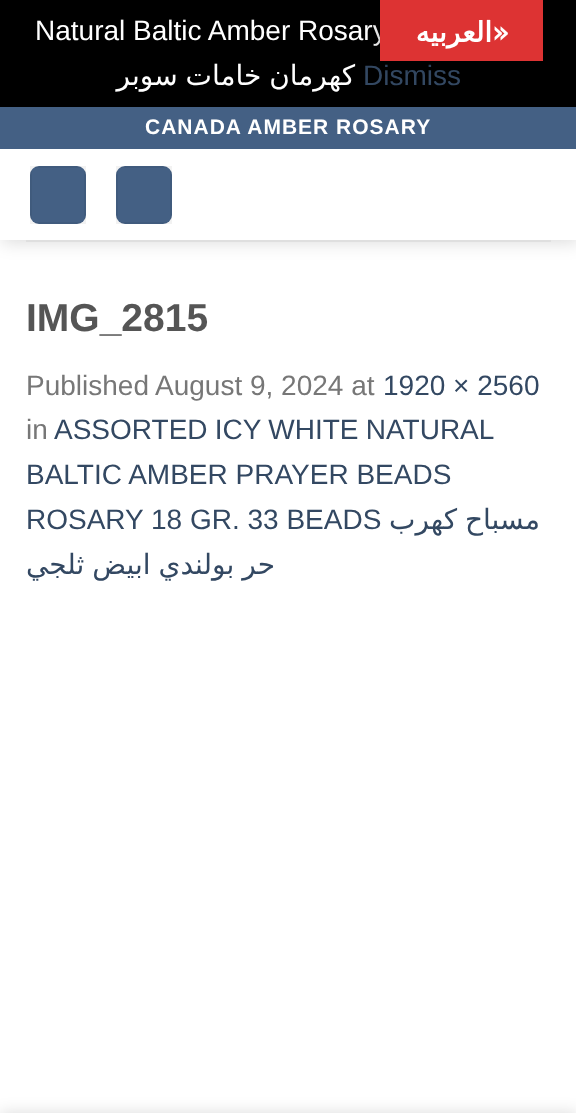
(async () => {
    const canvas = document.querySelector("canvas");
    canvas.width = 576;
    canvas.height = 1113;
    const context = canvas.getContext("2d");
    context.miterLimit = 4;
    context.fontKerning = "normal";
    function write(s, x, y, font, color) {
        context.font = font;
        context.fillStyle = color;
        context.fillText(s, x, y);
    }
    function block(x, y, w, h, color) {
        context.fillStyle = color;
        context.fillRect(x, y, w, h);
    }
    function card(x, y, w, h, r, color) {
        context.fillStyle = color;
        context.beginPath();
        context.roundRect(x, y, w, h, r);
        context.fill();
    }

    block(0, 0, 576, 1113, "rgb(0, 0, 0)");
    write("Natural Baltic Amber Rosary", 35, 40, "28px Liberation Sans", "rgb(255, 255, 255)");
    context.wordSpacing = "-1px";
    context.direction = "rtl";
    write("كهرمان خامات سوبر", 355, 85, "28px DejaVu Sans", "rgb(255, 255, 255)");
    context.wordSpacing = "0px";
    context.direction = "ltr";
    write("Dismiss", 363, 85, "28px Liberation Sans", "rgb(51, 72, 98)");
    context.fillStyle = "rgba(0, 0, 0, 0.3)";
    context.filter = "blur(8px)";
    context.beginPath();
    context.rect(380, 0, 163, 61);
    context.fill();
    context.filter = "none";
    block(380, 0, 163, 61, "rgb(221, 51, 51)");
    context.direction = "rtl";
    write("العربيه", 492, 42, "bold 28px DejaVu Sans", "rgb(255, 255, 255)");
    context.direction = "ltr";
    write("»", 492, 42, "bold 28px DejaVu Sans", "rgb(255, 255, 255)");
    block(0, 149, 576, 964, "rgb(255, 255, 255)");
    context.save();
    context.beginPath();
    context.moveTo(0, 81);
    context.lineTo(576, 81);
    context.lineTo(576, 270);
    context.lineTo(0, 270);
    context.closePath();
    context.moveTo(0, 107);
    context.lineTo(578, 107);
    context.lineTo(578, 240);
    context.lineTo(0, 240);
    context.closePath();
    context.clip("evenodd");
    context.fillStyle = "rgba(0, 0, 0, 0.15)";
    context.filter = "blur(9px)";
    context.beginPath();
    context.rect(2, 109, 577, 133);
    context.fill();
    context.filter = "none";
    context.restore();
    block(0, 107, 576, 42, "rgb(68, 96, 132)");
    context.letterSpacing = "1px";
    write("CANADA AMBER ROSARY", 145, 134, "bold 21px Liberation Sans", "rgb(255, 255, 255)");
    card(30, 166, 56, 58, 9, "rgb(68, 96, 132)");
    context.strokeStyle = "rgba(0, 0, 0, 0.05)";
    context.lineWidth = 2;
    context.strokeRect(31, 167, 54, 56);
    card(116, 166, 56, 58, 9, "rgb(68, 96, 132)");
    context.strokeRect(117, 167, 54, 56);
    block(26, 240, 525, 2, "rgb(223, 223, 223)");
    block(2, 239, 574, 1, "rgba(255, 255, 255, 0.9)");
    context.letterSpacing = "0px";
    write("IMG_2815", 26, 331, "bold 39px Liberation Sans", "rgb(85, 85, 85)");
    write("Published", 26, 395, "28px Liberation Sans", "rgb(119, 119, 119)");
    write("August 9, 2024 at", 155, 395, "28px Liberation Sans", "rgb(119, 119, 119)");
    write("1920 × 2560", 383, 395, "28px Liberation Sans", "rgb(51, 72, 98)");
    write("in", 26, 439, "28px Liberation Sans", "rgb(119, 119, 119)");
    context.wordSpacing = "-0.5px";
    write("ASSORTED ICY WHITE NATURAL", 54, 439, "28px Liberation Sans", "rgb(51, 72, 98)");
    context.wordSpacing = "0px";
    write("BALTIC AMBER PRAYER BEADS", 26, 484, "28px Liberation Sans", "rgb(51, 72, 98)");
    write("ROSARY 18 GR. 33 BEADS", 26, 529, "28px Liberation Sans", "rgb(51, 72, 98)");
    context.wordSpacing = "-1px";
    context.direction = "rtl";
    write("مسباح كهرب", 540, 529, "28px DejaVu Sans", "rgb(51, 72, 98)");
    write("حر بولندي ابيض ثلجي", 275, 574, "28px DejaVu Sans", "rgb(51, 72, 98)");
    context.fillStyle = "rgba(0, 0, 0, 0.14)";
    context.filter = "blur(8px)";
    context.beginPath();
    context.rect(0, 1113, 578, 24);
    context.fill();
    context.filter = "none";
})();
